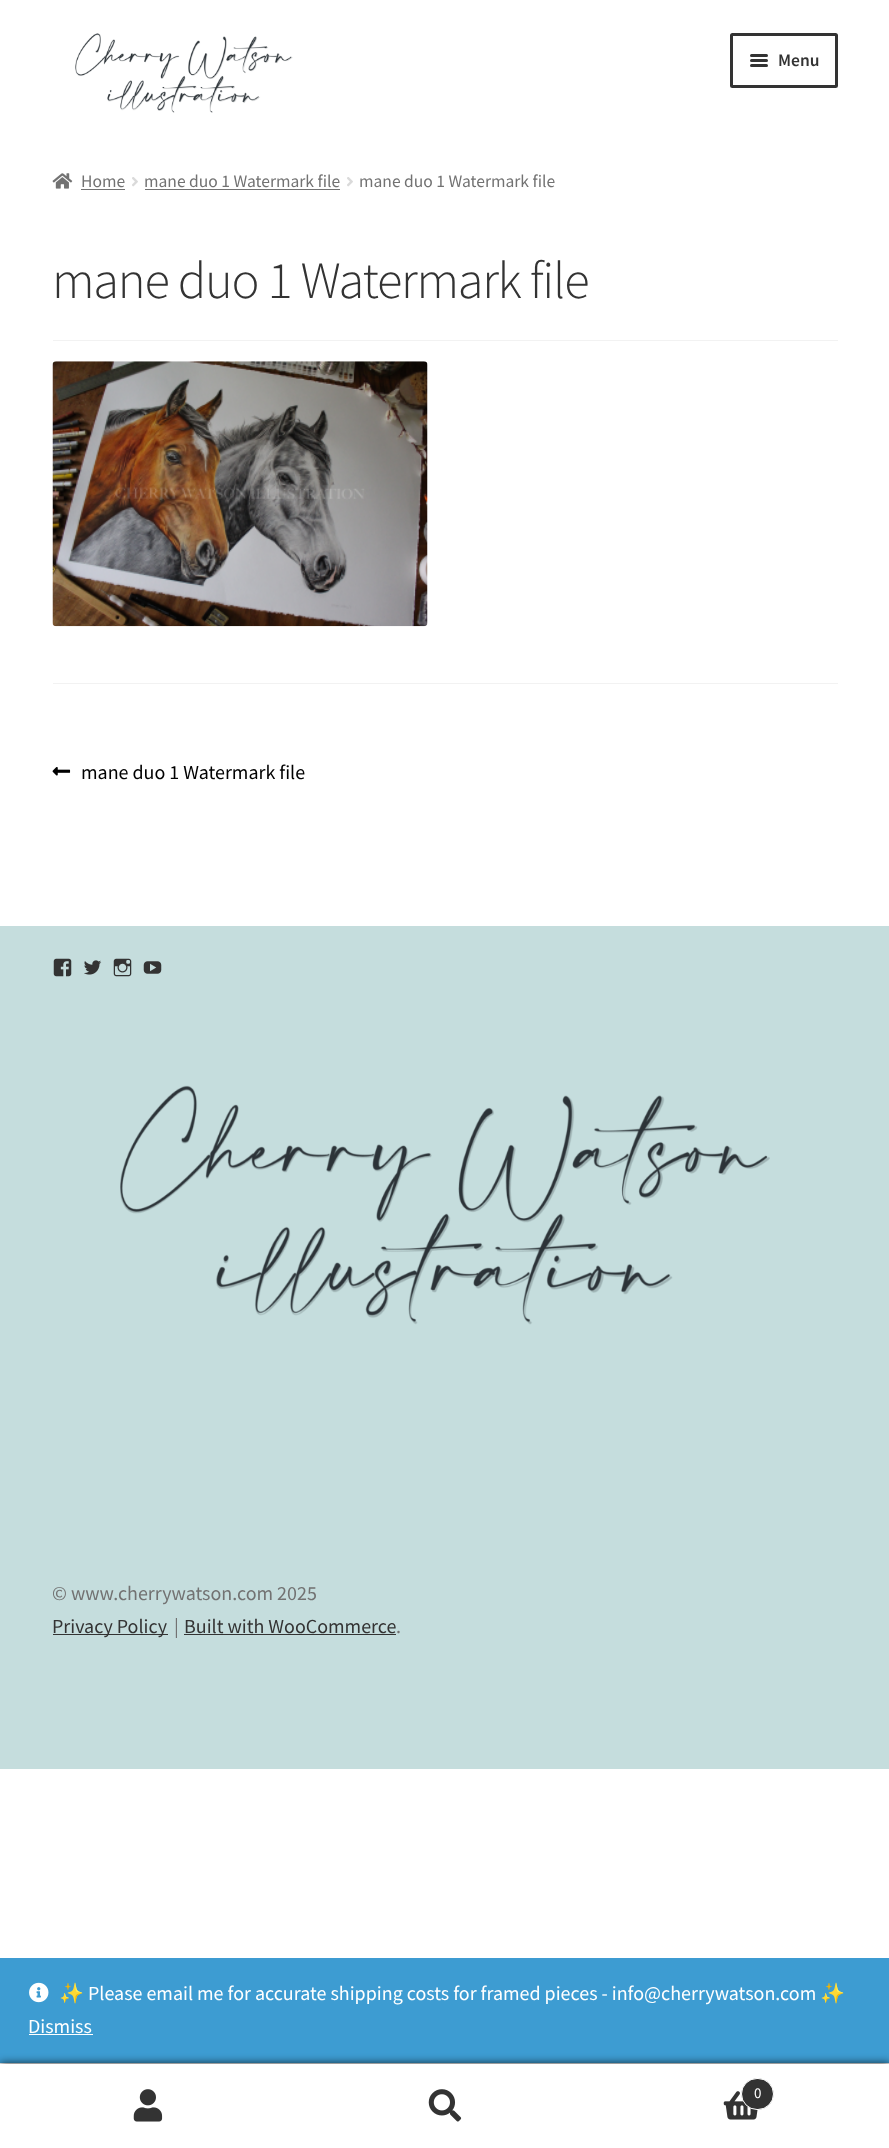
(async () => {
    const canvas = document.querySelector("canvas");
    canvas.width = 889;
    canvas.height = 2148;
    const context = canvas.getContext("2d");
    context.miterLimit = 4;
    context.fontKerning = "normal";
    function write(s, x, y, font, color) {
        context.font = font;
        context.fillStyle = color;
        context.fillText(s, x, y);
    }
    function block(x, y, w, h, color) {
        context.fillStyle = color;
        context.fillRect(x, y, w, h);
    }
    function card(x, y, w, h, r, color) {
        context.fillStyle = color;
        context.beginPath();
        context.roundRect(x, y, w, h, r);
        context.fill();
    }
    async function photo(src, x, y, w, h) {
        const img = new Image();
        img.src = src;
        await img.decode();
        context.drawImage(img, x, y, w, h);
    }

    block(0, 0, 889, 2148, "rgb(255, 255, 255)");
    await photo("media/1.png", 75, 33, 218, 80);
    context.beginPath();
    context.roundRect(731.5, 34.5, 105, 52, 1);
    context.strokeStyle = "rgb(51, 51, 51)";
    context.lineWidth = 3;
    context.stroke();
    card(750, 54, 18, 3, 1.5, "rgb(51, 51, 51)");
    card(750, 59, 18, 3, 1.5, "rgb(51, 51, 51)");
    write("Menu", 778, 66, "600 17.5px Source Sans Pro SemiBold", "rgb(51, 51, 51)");
    card(750, 64, 18, 3, 1.5, "rgb(51, 51, 51)");
    await photo("media/2.png", 52, 173, 21, 16);
    write("Home", 81, 187, "17.5px Source Sans Pro", "rgb(114, 114, 114)");
    block(81, 189, 44, 1, "rgb(114, 114, 114)");
    await photo("media/3.png", 132, 177, 6, 10);
    write("mane duo 1 Watermark file", 144, 187, "17.5px Source Sans Pro", "rgb(114, 114, 114)");
    block(145, 189, 195, 1, "rgb(114, 114, 114)");
    await photo("media/3.png", 347, 177, 6, 10);
    write("mane duo 1 Watermark file", 359, 187, "17.5px Source Sans Pro", "rgb(114, 114, 114)");
    block(53, 340, 785, 1, "rgb(242, 242, 242)");
    context.letterSpacing = "-1.25px";
    write("mane duo 1 Watermark file", 52, 298, "300 52.4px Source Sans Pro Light", "rgb(51, 51, 51)");
    await photo("media/4.png", 52, 361, 376, 266);
    block(53, 683, 785, 1, "rgb(242, 242, 242)");
    await photo("media/5.png", 52, 767, 19, 9);
    context.letterSpacing = "0px";
    write("mane duo 1 Watermark file", 81, 779, "20px Source Sans Pro", "rgb(0, 0, 0)");
    block(0, 926, 889, 843, "rgb(197, 221, 221)");
    await photo("media/6.png", 53, 958, 19, 19);
    await photo("media/7.png", 84, 960, 18, 15);
    await photo("media/8.png", 113, 958, 19, 19);
    await photo("media/9.png", 143, 961, 19, 13);
    await photo("media/10.png", 120, 1085, 650, 240);
    write("© www.cherrywatson.com 2025", 52, 1600, "20px Source Sans Pro", "rgb(114, 114, 114)");
    block(53, 1634, 115, 1, "rgb(51, 51, 51)");
    write("Privacy Policy", 52, 1633, "20px Source Sans Pro", "rgb(51, 51, 51)");
    write("|", 174, 1633, "20px Source Sans Pro", "rgb(114, 114, 114)");
    write("Built with WooCommerce", 184, 1633, "20px Source Sans Pro", "rgb(51, 51, 51)");
    block(184, 1634, 212, 1, "rgb(51, 51, 51)");
    write(".", 396, 1633, "20px Source Sans Pro", "rgb(114, 114, 114)");
    block(0, 1958, 889, 105, "rgb(61, 156, 210)");
    context.fillStyle = "rgba(0, 0, 0, 0.7)";
    context.filter = "blur(4px)";
    context.beginPath();
    context.rect(0, 2063, 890, 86);
    context.fill();
    context.filter = "none";
    block(0, 2064, 889, 84, "rgb(255, 255, 255)");
    await photo("media/11.png", 133, 2089, 30, 33);
    await photo("media/12.png", 428, 2089, 34, 33);
    await photo("media/13.png", 723, 2091, 35, 29);
    context.fillStyle = "rgb(51, 51, 51)";
    context.beginPath();
    context.roundRect(741.5, 2078.5, 32, 31, 15.5);
    context.fill();
    context.strokeStyle = "rgb(255, 255, 255)";
    context.lineWidth = 1;
    context.stroke();
    write("0", 754, 2098, "15px Source Sans Pro", "rgb(255, 255, 255)");
    await photo("media/14.png", 29, 1982, 20, 21);
    write("✨", 59, 2000, "20px Noto Color Emoji", "rgb(255, 255, 255)");
    write("Please email me for accurate shipping costs for framed pieces - info@cherrywatson.com", 88, 2000, "20px Source Sans Pro", "rgb(255, 255, 255)");
    write("✨", 820, 2000, "20px Noto Color Emoji", "rgb(255, 255, 255)");
    write("Dismiss", 28, 2033, "20px Source Sans Pro", "rgb(255, 255, 255)");
    block(29, 2034, 64, 1, "rgb(255, 255, 255)");
})();
